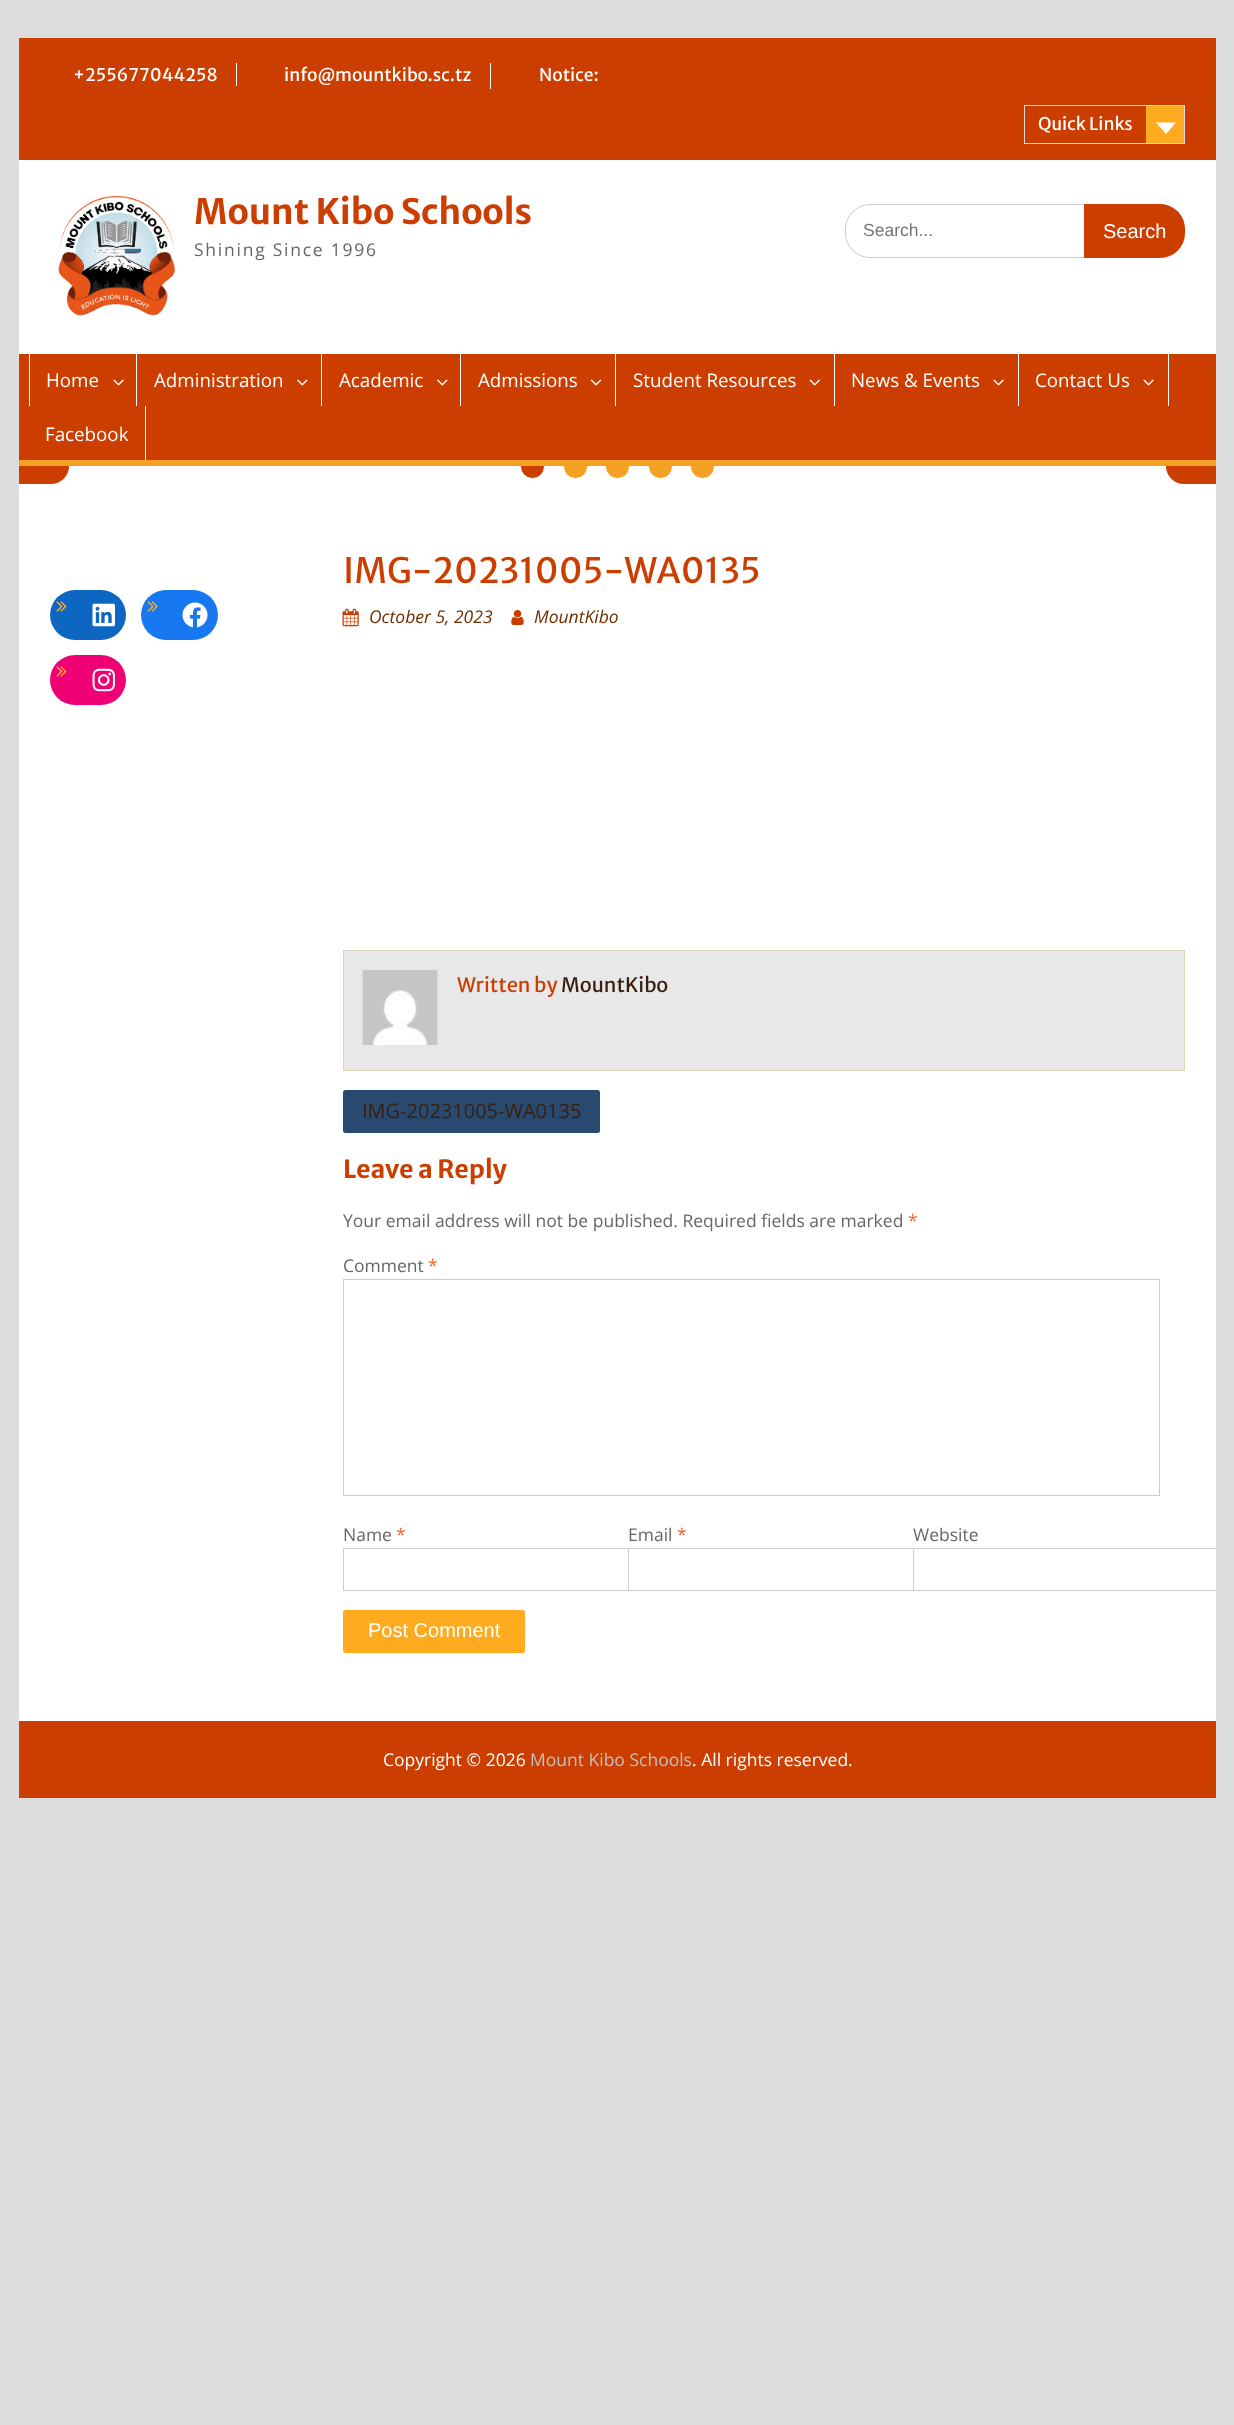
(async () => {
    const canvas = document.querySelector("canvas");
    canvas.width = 1234;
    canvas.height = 2425;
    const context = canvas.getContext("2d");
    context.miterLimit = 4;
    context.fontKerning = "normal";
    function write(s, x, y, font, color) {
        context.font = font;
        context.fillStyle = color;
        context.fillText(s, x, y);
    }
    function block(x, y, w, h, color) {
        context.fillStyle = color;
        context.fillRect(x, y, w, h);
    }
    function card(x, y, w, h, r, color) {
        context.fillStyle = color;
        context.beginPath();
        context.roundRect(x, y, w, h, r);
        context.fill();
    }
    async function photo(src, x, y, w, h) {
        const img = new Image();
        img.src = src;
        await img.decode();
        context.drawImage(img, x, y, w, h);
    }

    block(0, 0, 1234, 2425, "rgb(221, 221, 221)");
    block(19, 160, 1197, 1561, "rgb(255, 255, 255)");
    block(19, 38, 1197, 122, "rgb(204, 61, 0)");
    write("+255677044258", 73, 81, "17.5px Merriweather Sans", "rgb(255, 255, 255)");
    block(236, 63, 1, 23, "rgb(255, 255, 255)");
    write("info@mountkibo.sc.tz", 284, 81, "17.5px Merriweather Sans", "rgb(255, 255, 255)");
    block(490, 63, 1, 26, "rgb(255, 255, 255)");
    write("Notice:", 539, 81, "17.5px Merriweather Sans", "rgb(255, 255, 255)");
    context.strokeStyle = "rgb(221, 221, 221)";
    context.strokeRect(1024.5, 105.5, 160, 38);
    write("Quick Links", 1038, 130, "17.5px Merriweather Sans", "rgb(255, 255, 255)");
    block(1146, 106, 38, 37, "rgb(255, 171, 31)");
    context.fillStyle = "rgb(255, 255, 255)";
    context.beginPath();
    context.moveTo(1156, 122.5);
    context.lineTo(1176, 122.5);
    context.lineTo(1166, 134);
    context.closePath();
    context.fill();
    await photo("media/1.png", 58, 196, 117, 120);
    write("Mount Kibo Schools", 194, 224, "bold 35px Merriweather Sans", "rgb(204, 61, 0)");
    context.letterSpacing = "1.75px";
    write("Shining Since 1996", 194, 256, "17.5px Open Sans", "rgb(102, 102, 102)");
    context.beginPath();
    context.roundRect(845.5, 204.5, 339, 53, 24.5);
    context.strokeStyle = "rgb(204, 204, 204)";
    context.stroke();
    context.letterSpacing = "0px";
    write("Search...", 863, 236, "17.5px Liberation Sans", "rgb(117, 117, 117)");
    context.fillStyle = "rgb(204, 61, 0)";
    context.beginPath();
    context.roundRect(1084, 204, 101, 54, [0, 25, 25, 0]);
    context.fill();
    write("Search", 1103, 238, "20px Liberation Sans", "rgb(255, 255, 255)");
    block(19, 354, 1197, 106, "rgb(204, 61, 0)");
    block(19, 460, 1197, 6, "rgb(244, 160, 36)");
    block(136, 354, 1, 52, "rgb(255, 255, 255)");
    block(29, 354, 1, 52, "rgb(255, 255, 255)");
    write("Home", 46, 387, "18.75px Open Sans", "rgb(255, 255, 255)");
    await photo("media/2.png", 113, 379, 11, 7);
    block(321, 354, 1, 52, "rgb(255, 255, 255)");
    write("Administration", 154, 387, "18.75px Open Sans", "rgb(255, 255, 255)");
    await photo("media/3.png", 297, 379, 11, 7);
    block(460, 354, 1, 52, "rgb(255, 255, 255)");
    write("Academic", 339, 387, "18.75px Open Sans", "rgb(255, 255, 255)");
    await photo("media/3.png", 437, 379, 11, 7);
    block(615, 354, 1, 52, "rgb(255, 255, 255)");
    write("Admissions", 478, 387, "18.75px Open Sans", "rgb(255, 255, 255)");
    await photo("media/4.png", 590, 379, 12, 7);
    block(834, 354, 1, 52, "rgb(255, 255, 255)");
    write("Student Resources", 633, 387, "18.75px Open Sans", "rgb(255, 255, 255)");
    await photo("media/5.png", 809, 379, 11, 7);
    block(1018, 354, 1, 52, "rgb(255, 255, 255)");
    write("News & Events", 851, 387, "18.75px Open Sans", "rgb(255, 255, 255)");
    await photo("media/2.png", 993, 379, 11, 7);
    block(1168, 354, 1, 52, "rgb(255, 255, 255)");
    write("Contact Us", 1035, 387, "18.75px Open Sans", "rgb(255, 255, 255)");
    await photo("media/2.png", 1143, 379, 11, 7);
    block(145, 406, 1, 54, "rgb(255, 255, 255)");
    write("Facebook", 45, 441, "18.75px Open Sans", "rgb(255, 255, 255)");
    context.fillStyle = "rgb(204, 61, 0)";
    context.beginPath();
    context.roundRect(19, 466, 50, 18, [0, 0, 38, 0]);
    context.fill();
    context.save();
    context.beginPath();
    context.rect(19, 466, 1197, 29);
    context.clip();
    context.beginPath();
    context.arc(532.5, 466.5, 12, 0, Math.PI * 2);
    context.fill();
    context.strokeStyle = "rgb(255, 255, 255)";
    context.stroke();
    context.fillStyle = "rgb(244, 160, 36)";
    context.beginPath();
    context.arc(575.5, 466.5, 12, 0, Math.PI * 2);
    context.fill();
    context.stroke();
    context.beginPath();
    context.arc(617.5, 466.5, 12, 0, Math.PI * 2);
    context.fill();
    context.stroke();
    context.beginPath();
    context.arc(660.5, 466.5, 12, 0, Math.PI * 2);
    context.fill();
    context.stroke();
    context.beginPath();
    context.arc(702.5, 466.5, 12, 0, Math.PI * 2);
    context.fill();
    context.stroke();
    context.restore();
    context.beginPath();
    context.roundRect(1166, 466, 50, 18, [0, 0, 0, 38]);
    context.fill();
    card(50, 590, 76, 50, 25, "rgb(13, 102, 194)");
    await photo("media/6.png", 56, 601, 11, 11);
    await photo("media/7.png", 92, 603, 23, 24);
    card(141, 590, 77, 50, 25, "rgb(23, 120, 242)");
    await photo("media/8.png", 147, 601, 11, 11);
    await photo("media/9.png", 182, 602, 26, 26);
    card(50, 655, 76, 50, 25, "rgb(240, 0, 117)");
    await photo("media/10.png", 56, 666, 11, 11);
    await photo("media/11.png", 92, 668, 23, 24);
    write("IMG-20231005-WA0135", 343, 583, "35px Merriweather Sans", "rgb(204, 61, 0)");
    await photo("media/12.png", 342, 608, 17, 19);
    write("October 5, 2023", 369, 623, "italic 17.5px Open Sans", "rgb(109, 47, 0)");
    await photo("media/13.png", 511, 610, 13, 15);
    write("MountKibo", 534, 623, "italic 17.5px Open Sans", "rgb(109, 47, 0)");
    context.fillStyle = "rgb(232, 232, 232)";
    context.beginPath();
    context.rect(343.5, 950.5, 841, 120);
    context.fill();
    context.strokeStyle = "rgb(223, 213, 181)";
    context.stroke();
    await photo("media/14.png", 362, 970, 76, 75);
    write("Written by", 457, 992, "20px Merriweather Sans", "rgb(204, 61, 0)");
    write("MountKibo", 561, 992, "20px Merriweather Sans", "rgb(58, 30, 13)");
    card(343, 1090, 257, 43, 2.5, "rgb(41, 74, 112)");
    write("IMG-20231005-WA0135", 362, 1118, "20px Open Sans", "rgb(58, 30, 13)");
    write("Leave a Reply", 343, 1178, "bold 25px Merriweather Sans", "rgb(204, 61, 0)");
    write("Your email address will not be published. Required fields are marked", 343, 1227, "17.5px Open Sans", "rgb(102, 102, 102)");
    write("*", 908, 1227, "17.5px Open Sans", "rgb(240, 99, 43)");
    write("Comment", 343, 1272, "17.5px Open Sans", "rgb(102, 102, 102)");
    write("*", 428, 1272, "17.5px Open Sans", "rgb(240, 99, 43)");
    context.strokeStyle = "rgb(204, 204, 204)";
    context.strokeRect(343.5, 1279.5, 816, 216);
    write("Name", 343, 1541, "17.5px Open Sans", "rgb(102, 102, 102)");
    write("*", 396, 1541, "17.5px Open Sans", "rgb(240, 99, 43)");
    context.strokeRect(343.5, 1548.5, 340, 42);
    write("Email", 628, 1541, "17.5px Open Sans", "rgb(102, 102, 102)");
    write("*", 677, 1541, "17.5px Open Sans", "rgb(240, 99, 43)");
    block(683, 1549, 1, 41, "rgb(255, 255, 255)");
    context.strokeRect(628.5, 1548.5, 340, 42);
    write("Website", 913, 1541, "17.5px Open Sans", "rgb(102, 102, 102)");
    block(968, 1549, 1, 41, "rgb(255, 255, 255)");
    context.save();
    context.beginPath();
    context.rect(19, 38, 1197, 1760);
    context.clip();
    context.strokeRect(913.5, 1548.5, 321, 42);
    context.restore();
    card(343, 1610, 182, 43, 2.5, "rgb(255, 171, 31)");
    write("Post Comment", 368, 1637, "20px Liberation Sans", "rgb(255, 255, 255)");
    block(19, 1721, 1197, 77, "rgb(204, 61, 0)");
    write("Copyright © 2026", 383, 1766, "17.5px Open Sans", "rgb(255, 255, 255)");
    write("Mount Kibo Schools", 530, 1766, "17.5px Open Sans", "rgb(194, 194, 194)");
    write(". All rights reserved.", 692, 1766, "17.5px Open Sans", "rgb(255, 255, 255)");
})();
